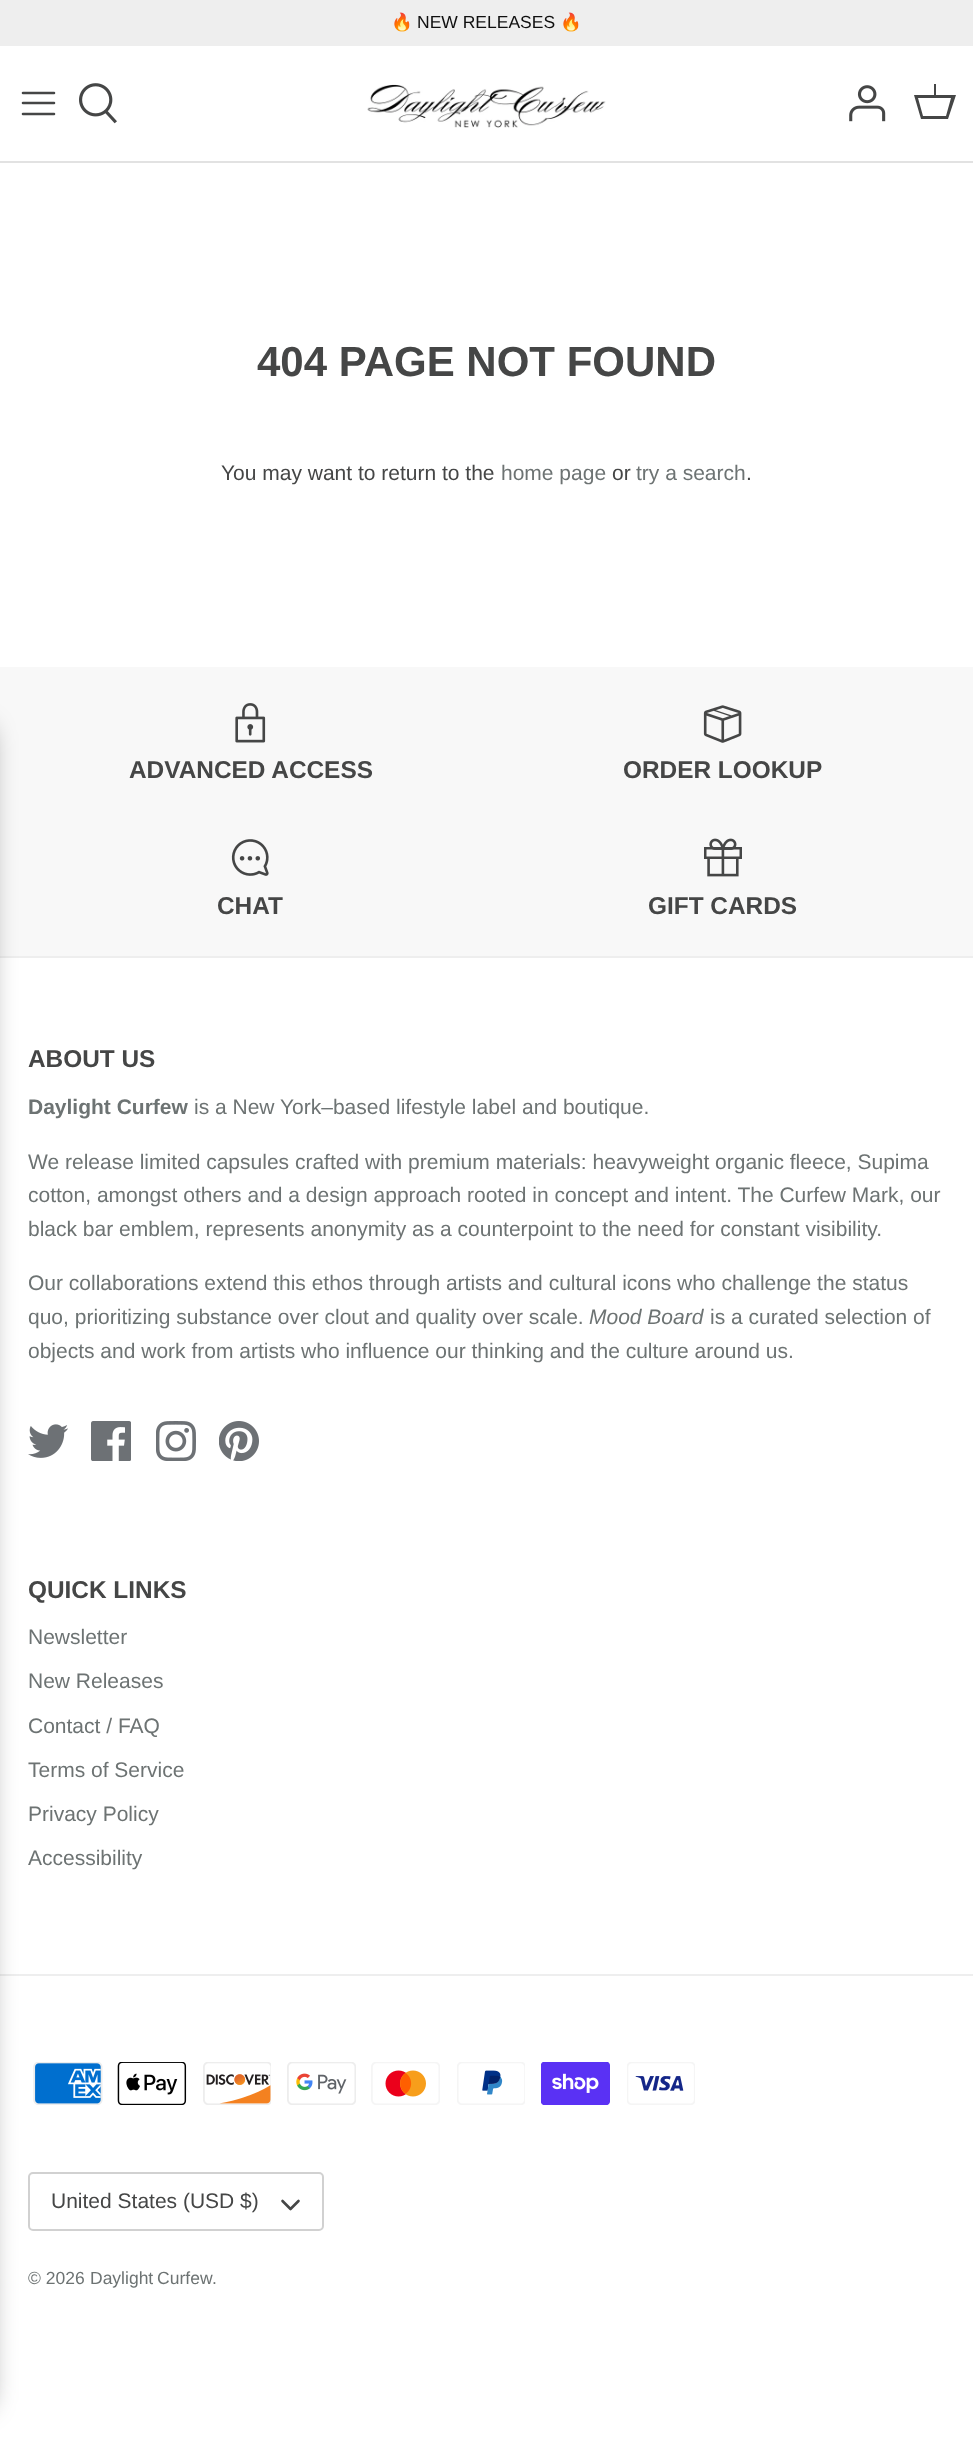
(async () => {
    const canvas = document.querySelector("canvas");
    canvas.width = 973;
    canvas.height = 2459;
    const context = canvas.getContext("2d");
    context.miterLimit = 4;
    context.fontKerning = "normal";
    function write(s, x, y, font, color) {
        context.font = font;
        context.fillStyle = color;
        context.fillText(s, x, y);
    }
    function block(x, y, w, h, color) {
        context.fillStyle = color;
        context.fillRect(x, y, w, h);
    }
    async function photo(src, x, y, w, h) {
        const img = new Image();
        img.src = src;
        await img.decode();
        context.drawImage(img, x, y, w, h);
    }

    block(0, 0, 973, 2459, "rgb(255, 255, 255)");
    block(0, 667, 973, 289, "rgb(248, 248, 248)");
    block(0, 956, 973, 2, "rgb(238, 238, 238)");
    await photo("media/8.png", 28, 1424, 40, 34);
    block(0, 1974, 973, 2, "rgb(238, 238, 238)");
    context.beginPath();
    context.roundRect(29, 2173, 294, 57, 4);
    context.strokeStyle = "rgb(209, 209, 209)";
    context.lineWidth = 2;
    context.stroke();
    context.fillStyle = "rgba(0, 0, 0, 0.4)";
    context.filter = "blur(13px)";
    context.beginPath();
    context.roundRect(-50, 726, 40, 1682, 11);
    context.fill();
    context.filter = "none";
    block(0, 0, 973, 46, "rgb(238, 238, 238)");
    write("🔥", 391, 28, "17.5px Noto Color Emoji", "rgb(15, 15, 15)");
    write("NEW RELEASES", 417, 28, "17.5px Liberation Sans", "rgb(15, 15, 15)");
    write("🔥", 560, 28, "17.5px Noto Color Emoji", "rgb(15, 15, 15)");
    block(0, 161, 973, 2, "rgb(226, 226, 226)");
    context.beginPath();
    context.moveTo(23, 103);
    context.lineTo(54, 103);
    context.moveTo(23, 93);
    context.lineTo(54, 93);
    context.moveTo(23, 114);
    context.lineTo(54, 114);
    context.strokeStyle = "rgb(69, 70, 70)";
    context.lineWidth = 2.6;
    context.lineCap = "round";
    context.lineJoin = "round";
    context.stroke();
    await photo("media/1.png", 79, 83, 38, 41);
    await photo("media/2.png", 367, 84, 239, 44);
    await photo("media/3.png", 849, 85, 37, 37);
    context.fillStyle = "rgb(69, 70, 70)";
    context.beginPath();
    context.moveTo(934, 95);
    context.lineTo(934, 84);
    context.lineTo(936, 84);
    context.lineTo(936, 95);
    context.lineTo(956, 95);
    context.lineTo(948, 119);
    context.lineTo(921, 119);
    context.lineTo(914, 95);
    context.closePath();
    context.moveTo(918, 98);
    context.lineTo(923, 116);
    context.lineTo(946, 116);
    context.lineTo(951, 98);
    context.closePath();
    context.fill();
    write("404 PAGE NOT FOUND", 257, 376, "bold 42px Liberation Sans", "rgb(69, 70, 70)");
    write("You may want to return to the", 221, 480, "21px Liberation Sans", "rgb(69, 70, 70)");
    write("home page", 501, 480, "21px Liberation Sans", "rgb(109, 115, 115)");
    write("or", 612, 480, "21px Liberation Sans", "rgb(69, 70, 70)");
    write("try a search", 636, 480, "21px Liberation Sans", "rgb(109, 115, 115)");
    write(".", 746, 480, "21px Liberation Sans", "rgb(69, 70, 70)");
    await photo("media/4.png", 235, 703, 31, 40);
    write("ADVANCED ACCESS", 129, 778, "bold 24.4px Liberation Sans", "rgb(69, 70, 70)");
    await photo("media/5.png", 703, 705, 39, 38);
    write("ORDER LOOKUP", 623, 778, "bold 24.4px Liberation Sans", "rgb(69, 70, 70)");
    await photo("media/6.png", 231, 839, 38, 37);
    write("CHAT", 217, 914, "bold 24.4px Liberation Sans", "rgb(69, 70, 70)");
    await photo("media/7.png", 704, 838, 38, 39);
    write("GIFT CARDS", 648, 914, "bold 24.4px Liberation Sans", "rgb(69, 70, 70)");
    write("ABOUT US", 28, 1067, "bold 24.4px Liberation Sans", "rgb(69, 70, 70)");
    write("Daylight Curfew", 28, 1114, "bold 21px Liberation Sans", "rgb(109, 115, 115)");
    write("is a New York–based lifestyle label and boutique.", 194, 1114, "21px Liberation Sans", "rgb(109, 115, 115)");
    write("We release limited capsules crafted with premium materials: heavyweight organic fleece, Supima", 28, 1169, "21px Liberation Sans", "rgb(109, 115, 115)");
    write("cotton, amongst others and a design approach rooted in concept and intent. The Curfew Mark, our", 28, 1202, "21px Liberation Sans", "rgb(109, 115, 115)");
    write("black bar emblem, represents anonymity as a counterpoint to the need for constant visibility.", 28, 1236, "21px Liberation Sans", "rgb(109, 115, 115)");
    write("Our collaborations extend this ethos through artists and cultural icons who challenge the status", 28, 1290, "21px Liberation Sans", "rgb(109, 115, 115)");
    write("quo, prioritizing substance over clout and quality over scale.", 28, 1324, "21px Liberation Sans", "rgb(109, 115, 115)");
    write("Mood Board", 589, 1324, "italic 21px Liberation Sans", "rgb(109, 115, 115)");
    write("is a curated selection of", 710, 1324, "21px Liberation Sans", "rgb(109, 115, 115)");
    write("objects and work from artists who influence our thinking and the culture around us.", 28, 1358, "21px Liberation Sans", "rgb(109, 115, 115)");
    await photo("media/9.png", 91, 1421, 40, 40);
    await photo("media/10.png", 156, 1421, 40, 40);
    await photo("media/11.png", 219, 1421, 40, 40);
    write("QUICK LINKS", 28, 1598, "bold 24.4px Liberation Sans", "rgb(69, 70, 70)");
    write("Newsletter", 28, 1644, "21px Liberation Sans", "rgb(109, 115, 115)");
    write("New Releases", 28, 1688, "21px Liberation Sans", "rgb(109, 115, 115)");
    write("Contact / FAQ", 28, 1733, "21px Liberation Sans", "rgb(109, 115, 115)");
    write("Terms of Service", 28, 1777, "21px Liberation Sans", "rgb(109, 115, 115)");
    write("Privacy Policy", 28, 1821, "21px Liberation Sans", "rgb(109, 115, 115)");
    write("Accessibility", 28, 1865, "21px Liberation Sans", "rgb(109, 115, 115)");
    await photo("media/12.png", 33, 2062, 70, 43);
    await photo("media/13.png", 117, 2062, 70, 43);
    await photo("media/14.png", 203, 2062, 68, 43);
    await photo("media/15.png", 287, 2062, 69, 43);
    await photo("media/16.png", 371, 2062, 69, 43);
    await photo("media/17.png", 457, 2062, 68, 43);
    await photo("media/18.png", 541, 2062, 69, 43);
    await photo("media/19.png", 627, 2062, 68, 43);
    write("United States (USD $)", 51, 2208, "21px Liberation Sans", "rgb(69, 70, 70)");
    context.beginPath();
    context.moveTo(282.5, 2201);
    context.lineTo(290.5, 2209);
    context.lineTo(298.5, 2201);
    context.stroke();
    write("© 2026", 28, 2284, "17.5px Liberation Sans", "rgb(109, 115, 115)");
    context.wordSpacing = "-1px";
    write("Daylight Curfew", 90, 2284, "17.5px Liberation Sans", "rgb(109, 115, 115)");
    context.wordSpacing = "0px";
    write(".", 212, 2284, "17.5px Liberation Sans", "rgb(109, 115, 115)");
})();
